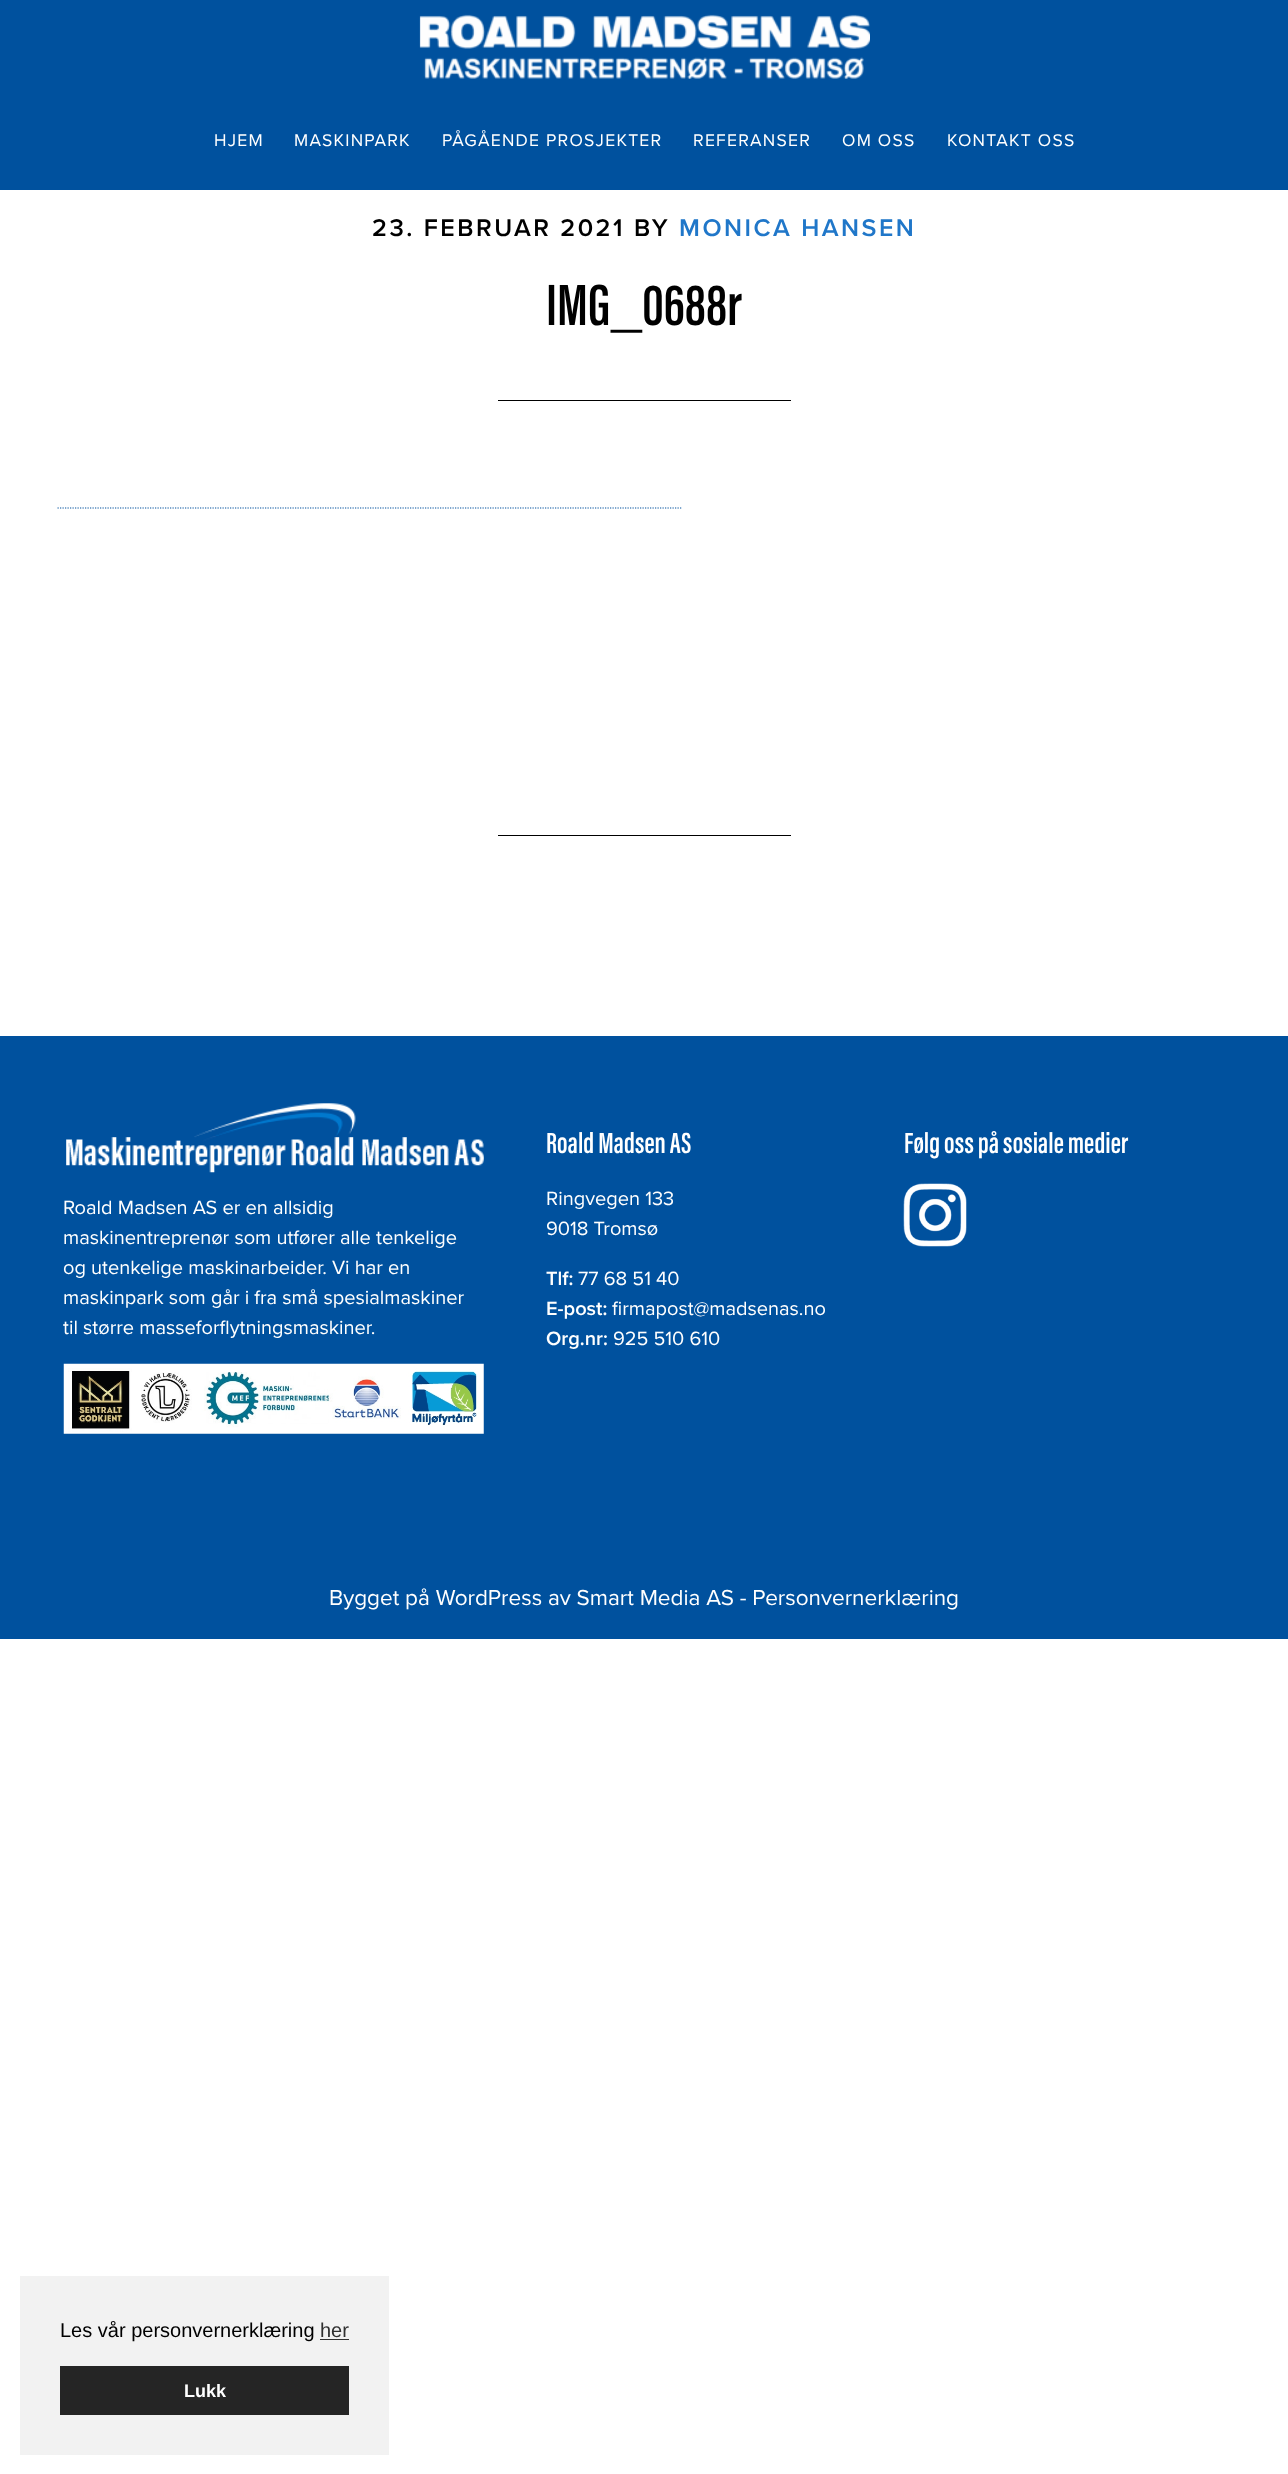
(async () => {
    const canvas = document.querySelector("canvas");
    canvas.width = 1288;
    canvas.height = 2474;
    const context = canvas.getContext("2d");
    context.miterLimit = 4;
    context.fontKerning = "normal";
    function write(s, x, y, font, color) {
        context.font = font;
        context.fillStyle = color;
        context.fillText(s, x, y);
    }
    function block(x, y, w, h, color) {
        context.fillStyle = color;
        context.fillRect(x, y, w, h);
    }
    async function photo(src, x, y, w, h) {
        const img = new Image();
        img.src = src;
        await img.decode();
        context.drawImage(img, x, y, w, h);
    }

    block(0, 0, 1288, 2474, "rgb(255, 255, 255)");
    block(0, 0, 1288, 190, "rgb(0, 81, 158)");
    await photo("media/1.png", 419, 14, 451, 65);
    context.letterSpacing = "1.25px";
    write("HJEM", 214, 146, "17.5px Proxima Nova", "rgb(255, 255, 255)");
    write("MASKINPARK", 294, 146, "17.5px Proxima Nova", "rgb(255, 255, 255)");
    write("PÅGÅENDE PROSJEKTER", 442, 146, "17.5px Proxima Nova", "rgb(255, 255, 255)");
    write("REFERANSER", 693, 146, "17.5px Proxima Nova", "rgb(255, 255, 255)");
    write("OM OSS", 842, 146, "17.5px Proxima Nova", "rgb(255, 255, 255)");
    write("KONTAKT OSS", 947, 146, "17.5px Proxima Nova", "rgb(255, 255, 255)");
    context.letterSpacing = "2.5px";
    write("23. FEBRUAR 2021 BY", 372, 236, "600 25px Proxima Nova", "rgb(0, 0, 0)");
    write("MONICA HANSEN", 679, 236, "600 25px Proxima Nova", "rgb(32, 119, 201)");
    context.letterSpacing = "0px";
    write("IMG_0688r", 546, 325, "600 60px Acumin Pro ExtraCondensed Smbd", "rgb(0, 0, 0)");
    block(498, 400, 293, 1, "rgb(0, 0, 0)");
    context.beginPath();
    context.moveTo(57.5, 508);
    context.lineTo(682.5, 508);
    context.strokeStyle = "rgb(0, 81, 158)";
    context.lineWidth = 1.2;
    context.setLineDash([1.25, 1.25]);
    context.stroke();
    block(498, 835, 293, 1, "rgb(0, 0, 0)");
    block(0, 1036, 1288, 603, "rgb(0, 81, 158)");
    await photo("media/2.png", 66, 1103, 418, 70);
    write("Roald Madsen AS er en allsidig", 63, 1214, "20px Proxima Nova", "rgb(255, 255, 255)");
    write("maskinentreprenør som utfører alle tenkelige", 63, 1244, "20px Proxima Nova", "rgb(255, 255, 255)");
    write("og utenkelige maskinarbeider. Vi har en", 63, 1274, "20px Proxima Nova", "rgb(255, 255, 255)");
    write("maskinpark som går i fra små spesialmaskiner", 63, 1304, "20px Proxima Nova", "rgb(255, 255, 255)");
    write("til større masseforflytningsmaskiner.", 63, 1334, "20px Proxima Nova", "rgb(255, 255, 255)");
    await photo("media/3.png", 63, 1363, 421, 71);
    write("Roald Madsen AS", 546, 1153, "600 30px Acumin Pro ExtraCondensed Smbd", "rgb(255, 255, 255)");
    write("Ringvegen 133", 546, 1205, "20px Proxima Nova", "rgb(255, 255, 255)");
    write("9018 Tromsø", 546, 1235, "20px Proxima Nova", "rgb(255, 255, 255)");
    write("Tlf:", 546, 1285, "600 20px Proxima Nova", "rgb(255, 255, 255)");
    write("77 68 51 40", 578, 1285, "20px Proxima Nova", "rgb(255, 255, 255)");
    write("E-post:", 546, 1315, "600 20px Proxima Nova", "rgb(255, 255, 255)");
    write("firmapost@madsenas.no", 612, 1315, "20px Proxima Nova", "rgb(255, 255, 255)");
    write("Org.nr:", 546, 1345, "600 20px Proxima Nova", "rgb(255, 255, 255)");
    write("925 510 610", 613, 1345, "20px Proxima Nova", "rgb(255, 255, 255)");
    write("Følg oss på sosiale medier", 904, 1153, "600 30px Acumin Pro ExtraCondensed Smbd", "rgb(255, 255, 255)");
    await photo("media/4.png", 903, 1183, 64, 64);
    write("Bygget på WordPress av Smart Media AS - Personvernerklæring", 329, 1605, "22.5px Proxima Nova", "rgb(255, 255, 255)");
    block(20, 2276, 369, 179, "rgb(242, 242, 242)");
    write("Les vår personvernerklæring", 60, 2337, "20px Liberation Sans", "rgb(0, 0, 0)");
    write("her", 320, 2337, "20px Liberation Sans", "rgb(48, 48, 48)");
    block(320, 2339, 29, 1, "rgb(48, 48, 48)");
    block(60, 2366, 289, 49, "rgb(37, 37, 37)");
    write("Lukk", 184, 2397, "bold 18px Liberation Sans", "rgb(255, 255, 255)");
})();
